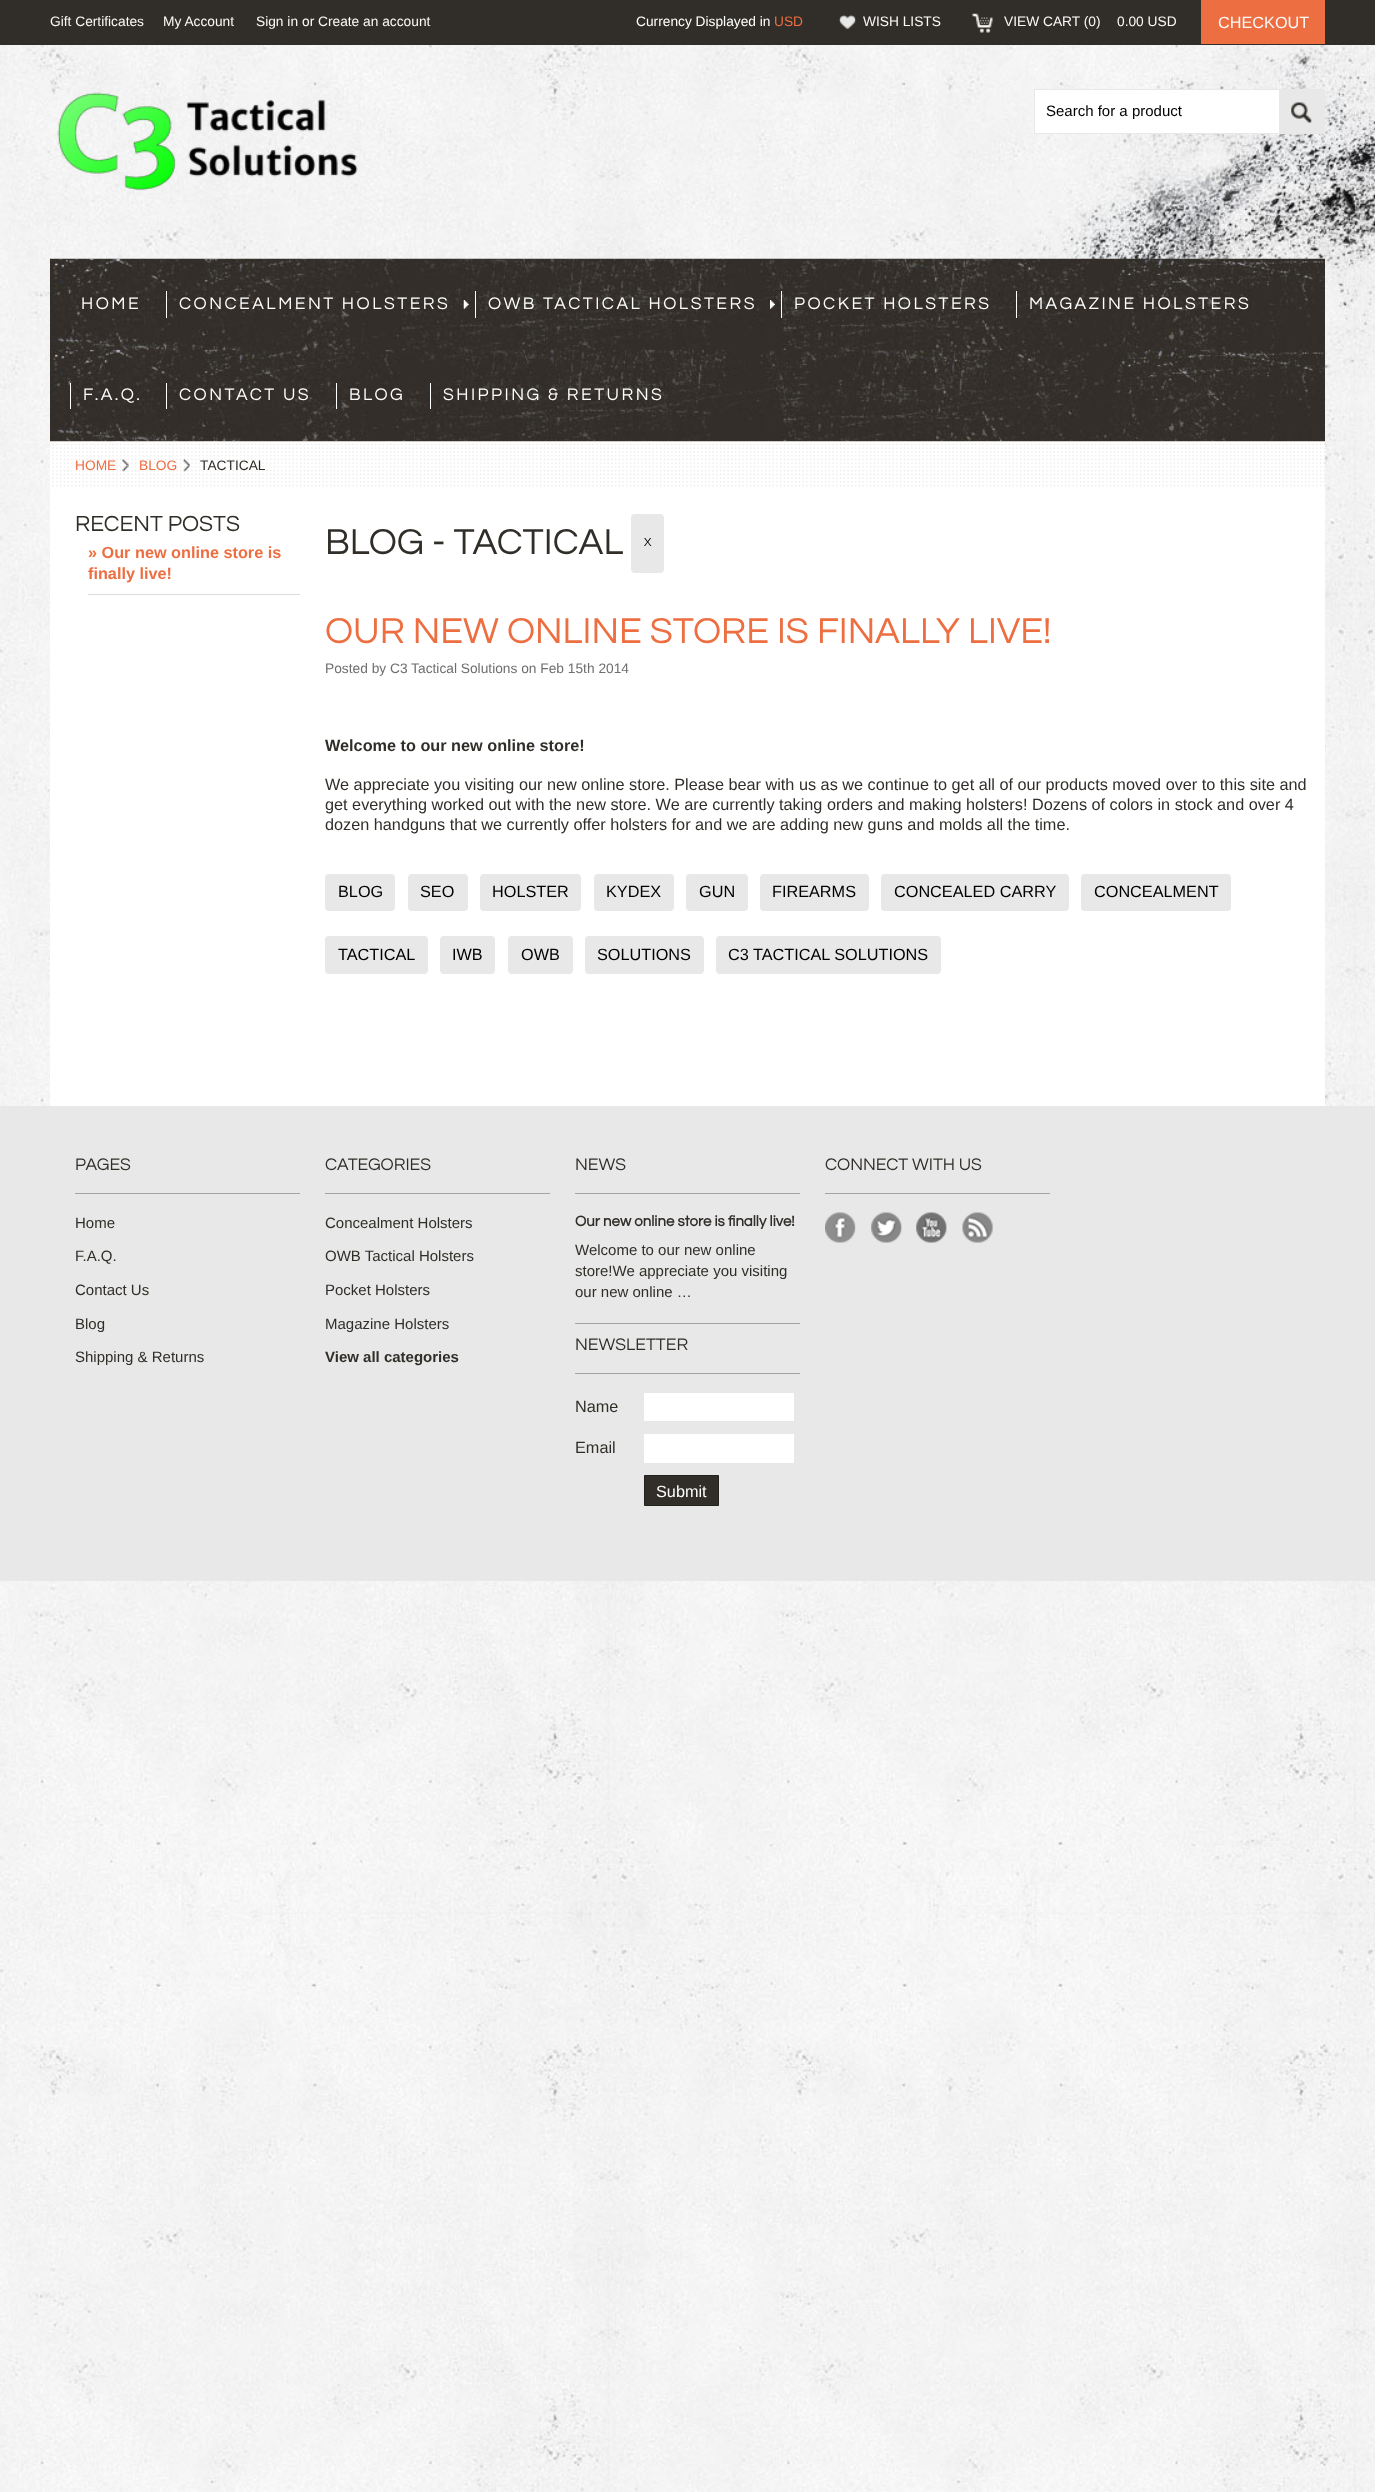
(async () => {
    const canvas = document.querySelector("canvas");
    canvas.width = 1375;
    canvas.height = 2492;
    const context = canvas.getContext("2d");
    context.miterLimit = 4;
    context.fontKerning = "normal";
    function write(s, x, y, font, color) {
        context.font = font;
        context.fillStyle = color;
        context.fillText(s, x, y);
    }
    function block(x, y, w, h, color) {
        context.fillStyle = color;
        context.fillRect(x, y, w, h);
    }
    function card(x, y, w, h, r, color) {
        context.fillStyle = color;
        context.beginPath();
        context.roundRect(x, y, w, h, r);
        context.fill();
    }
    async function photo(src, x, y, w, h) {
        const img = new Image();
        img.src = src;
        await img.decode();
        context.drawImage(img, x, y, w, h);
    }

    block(0, 0, 1375, 2492, "rgb(255, 255, 255)");
    await photo("media/1.png", 0, 723, 1375, 1769);
    await photo("media/2.png", 0, 45, 1375, 679);
    block(0, 0, 1375, 45, "rgb(49, 46, 41)");
    write("Gift Certificates", 50, 26, "13.75px Liberation Sans", "rgb(250, 249, 248)");
    write("My Account", 163, 26, "13.75px Liberation Sans", "rgb(250, 249, 248)");
    write("Sign in", 256, 26, "13.75px Liberation Sans", "rgb(250, 249, 248)");
    write("or", 302, 26, "13.75px Liberation Sans", "rgb(255, 255, 255)");
    write("Create an account", 318, 26, "13.75px Liberation Sans", "rgb(250, 249, 248)");
    write("Currency Displayed in", 636, 26, "13.75px Liberation Sans", "rgb(255, 255, 255)");
    write("USD", 774, 26, "13.75px Liberation Sans", "rgb(237, 110, 65)");
    await photo("media/3.png", 838, 15, 18, 14);
    write("WISH LISTS", 863, 26, "13.75px Liberation Sans", "rgb(250, 249, 248)");
    await photo("media/4.png", 972, 13, 21, 20);
    write("VIEW CART (0)", 1004, 26, "13.75px Liberation Sans", "rgb(250, 249, 248)");
    write("0.00 USD", 1117, 26, "13.75px Liberation Sans", "rgb(250, 249, 248)");
    block(1201, 0, 124, 44, "rgb(237, 110, 65)");
    write("CHECKOUT", 1218, 28, "16.25px Liberation Sans", "rgb(250, 249, 248)");
    await photo("media/5.png", 57, 92, 301, 99);
    block(1035, 90, 244, 43, "rgb(255, 255, 255)");
    context.strokeStyle = "rgb(231, 232, 231)";
    context.strokeRect(1034.5, 89.5, 290, 44);
    write("Search for a product", 1046, 116, "15px Liberation Sans", "rgb(0, 0, 0)");
    block(1279, 90, 45, 43, "rgb(231, 232, 231)");
    await photo("media/6.png", 1291, 102, 21, 21);
    block(50, 441, 1275, 665, "rgb(255, 255, 255)");
    await photo("media/7.png", 50, 258, 1275, 184);
    context.letterSpacing = "2.5px";
    write("HOME", 81, 309, "17.5px Questrial", "rgb(255, 255, 255)");
    block(166, 291, 1, 27, "rgb(255, 255, 255)");
    write("CONCEALMENT HOLSTERS", 179, 309, "17.5px Questrial", "rgb(255, 255, 255)");
    await photo("media/8.png", 463, 300, 6, 9);
    block(475, 291, 1, 27, "rgb(255, 255, 255)");
    write("OWB TACTICAL HOLSTERS", 488, 309, "17.5px Questrial", "rgb(255, 255, 255)");
    await photo("media/9.png", 770, 300, 5, 9);
    block(781, 291, 1, 27, "rgb(255, 255, 255)");
    write("POCKET HOLSTERS", 794, 309, "17.5px Questrial", "rgb(255, 255, 255)");
    block(1016, 291, 1, 27, "rgb(255, 255, 255)");
    write("MAGAZINE HOLSTERS", 1029, 309, "17.5px Questrial", "rgb(255, 255, 255)");
    block(70, 383, 1, 26, "rgb(255, 255, 255)");
    write("F.A.Q.", 83, 400, "17.5px Questrial", "rgb(255, 255, 255)");
    block(166, 383, 1, 26, "rgb(255, 255, 255)");
    write("CONTACT US", 179, 400, "17.5px Questrial", "rgb(255, 255, 255)");
    block(336, 383, 1, 26, "rgb(255, 255, 255)");
    write("BLOG", 349, 400, "17.5px Questrial", "rgb(255, 255, 255)");
    block(430, 383, 1, 26, "rgb(255, 255, 255)");
    write("SHIPPING & RETURNS", 443, 400, "17.5px Questrial", "rgb(255, 255, 255)");
    await photo("media/10.png", 52, 443, 1273, 44);
    await photo("media/11.png", 121, 458, 8, 14);
    context.letterSpacing = "0px";
    write("HOME", 75, 470, "13.75px Liberation Sans", "rgb(237, 110, 65)");
    await photo("media/12.png", 182, 458, 8, 14);
    write("BLOG", 139, 470, "13.75px Liberation Sans", "rgb(237, 110, 65)");
    write("TACTICAL", 200, 470, "13.75px Liberation Sans", "rgb(49, 46, 41)");
    write("RECENT POSTS", 75, 531, "22.75px Questrial", "rgb(49, 46, 41)");
    block(88, 594, 212, 1, "rgb(220, 220, 220)");
    write("» Our new online store is", 88, 558, "bold 16.25px Liberation Sans", "rgb(237, 110, 65)");
    write("finally live!", 88, 579, "bold 16.25px Liberation Sans", "rgb(237, 110, 65)");
    write("BLOG - TACTICAL", 325, 554, "37.5px Questrial", "rgb(49, 46, 41)");
    card(631, 514, 33, 59, 4, "rgb(232, 232, 232)");
    write("X", 644, 546, "12px Questrial", "rgb(0, 0, 0)");
    write("OUR NEW ONLINE STORE IS FINALLY LIVE!", 325, 643, "37.5px Questrial", "rgb(237, 110, 65)");
    write("Posted by C3 Tactical Solutions on Feb 15th 2014", 325, 673, "13.75px Liberation Sans", "rgb(110, 110, 110)");
    write("Welcome to our new online store!", 325, 751, "bold 16.25px Liberation Sans", "rgb(49, 46, 41)");
    write("We appreciate you visiting our new online store. Please bear with us as we continue to get all of our products moved over to this site and", 325, 790, "16.25px Liberation Sans", "rgb(49, 46, 41)");
    write("get everything worked out with the new store. We are currently taking orders and making holsters! Dozens of colors in stock and over 4", 325, 810, "16.25px Liberation Sans", "rgb(49, 46, 41)");
    write("dozen handguns that we currently offer holsters for and we are adding new guns and molds all the time.", 325, 830, "16.25px Liberation Sans", "rgb(49, 46, 41)");
    card(325, 874, 70, 37, 4, "rgb(232, 232, 232)");
    write("BLOG", 338, 897, "16.25px Liberation Sans", "rgb(0, 0, 0)");
    card(408, 874, 60, 37, 4, "rgb(232, 232, 232)");
    write("SEO", 420, 897, "16.25px Liberation Sans", "rgb(0, 0, 0)");
    card(480, 874, 101, 37, 4, "rgb(232, 232, 232)");
    write("HOLSTER", 492, 897, "16.25px Liberation Sans", "rgb(0, 0, 0)");
    card(594, 874, 80, 37, 4, "rgb(232, 232, 232)");
    write("KYDEX", 606, 897, "16.25px Liberation Sans", "rgb(0, 0, 0)");
    card(686, 874, 62, 37, 4, "rgb(232, 232, 232)");
    write("GUN", 699, 897, "16.25px Liberation Sans", "rgb(0, 0, 0)");
    card(760, 874, 109, 37, 4, "rgb(232, 232, 232)");
    write("FIREARMS", 772, 897, "16.25px Liberation Sans", "rgb(0, 0, 0)");
    card(881, 874, 188, 37, 4, "rgb(232, 232, 232)");
    write("CONCEALED CARRY", 894, 897, "16.25px Liberation Sans", "rgb(0, 0, 0)");
    card(1081, 874, 150, 37, 4, "rgb(232, 232, 232)");
    write("CONCEALMENT", 1094, 897, "16.25px Liberation Sans", "rgb(0, 0, 0)");
    card(325, 936, 103, 38, 4, "rgb(232, 232, 232)");
    write("TACTICAL", 338, 960, "16.25px Liberation Sans", "rgb(0, 0, 0)");
    card(440, 936, 55, 38, 4, "rgb(232, 232, 232)");
    write("IWB", 452, 960, "16.25px Liberation Sans", "rgb(0, 0, 0)");
    card(508, 936, 65, 38, 4, "rgb(232, 232, 232)");
    write("OWB", 521, 960, "16.25px Liberation Sans", "rgb(0, 0, 0)");
    card(585, 936, 119, 38, 4, "rgb(232, 232, 232)");
    write("SOLUTIONS", 597, 960, "16.25px Liberation Sans", "rgb(0, 0, 0)");
    card(716, 936, 225, 38, 4, "rgb(232, 232, 232)");
    write("C3 TACTICAL SOLUTIONS", 728, 960, "16.25px Liberation Sans", "rgb(0, 0, 0)");
    block(0, 1106, 1375, 475, "rgb(231, 232, 231)");
    block(75, 1193, 225, 1, "rgb(166, 163, 158)");
    write("PAGES", 75, 1170, "17.5px Questrial", "rgb(49, 46, 41)");
    write("Home", 75, 1228, "15px Liberation Sans", "rgb(49, 46, 41)");
    write("F.A.Q.", 75, 1261, "15px Liberation Sans", "rgb(49, 46, 41)");
    write("Contact Us", 75, 1295, "15px Liberation Sans", "rgb(49, 46, 41)");
    write("Blog", 75, 1329, "15px Liberation Sans", "rgb(49, 46, 41)");
    write("Shipping & Returns", 75, 1362, "15px Liberation Sans", "rgb(49, 46, 41)");
    block(325, 1193, 225, 1, "rgb(166, 163, 158)");
    write("CATEGORIES", 325, 1170, "17.5px Questrial", "rgb(49, 46, 41)");
    write("Concealment Holsters", 325, 1228, "15px Liberation Sans", "rgb(49, 46, 41)");
    write("OWB Tactical Holsters", 325, 1261, "15px Liberation Sans", "rgb(49, 46, 41)");
    write("Pocket Holsters", 325, 1295, "15px Liberation Sans", "rgb(49, 46, 41)");
    write("Magazine Holsters", 325, 1329, "15px Liberation Sans", "rgb(49, 46, 41)");
    write("View all categories", 325, 1362, "bold 15px Liberation Sans", "rgb(49, 46, 41)");
    block(575, 1193, 225, 1, "rgb(166, 163, 158)");
    write("NEWS", 575, 1170, "17.5px Questrial", "rgb(49, 46, 41)");
    block(575, 1323, 225, 1, "rgb(166, 163, 158)");
    write("Our new online store is finally live!", 575, 1226, "bold 15px Questrial", "rgb(49, 46, 41)");
    write("Welcome to our new online", 575, 1255, "15px Liberation Sans", "rgb(49, 46, 41)");
    write("store!We appreciate you visiting", 575, 1276, "15px Liberation Sans", "rgb(49, 46, 41)");
    write("our new online …", 575, 1297, "15px Liberation Sans", "rgb(49, 46, 41)");
    block(575, 1373, 225, 1, "rgb(166, 163, 158)");
    write("NEWSLETTER", 575, 1350, "17.5px Questrial", "rgb(49, 46, 41)");
    write("Name", 575, 1412, "16.25px Liberation Sans", "rgb(49, 46, 41)");
    block(644, 1393, 150, 28, "rgb(255, 255, 255)");
    write("Email", 575, 1453, "16.25px Liberation Sans", "rgb(49, 46, 41)");
    block(644, 1434, 150, 29, "rgb(255, 255, 255)");
    context.fillStyle = "rgb(49, 46, 41)";
    context.beginPath();
    context.rect(644.5, 1475.5, 74, 30);
    context.fill();
    context.strokeStyle = "rgb(35, 33, 29)";
    context.stroke();
    write("Submit", 656, 1497, "16.25px Liberation Sans", "rgb(255, 255, 255)");
    block(825, 1193, 225, 1, "rgb(166, 163, 158)");
    write("CONNECT WITH US", 825, 1170, "17.5px Questrial", "rgb(49, 46, 41)");
    await photo("media/13.png", 825, 1212, 31, 31);
    await photo("media/14.png", 871, 1212, 31, 31);
    await photo("media/15.png", 916, 1212, 31, 31);
    await photo("media/16.png", 962, 1212, 31, 31);
})();
